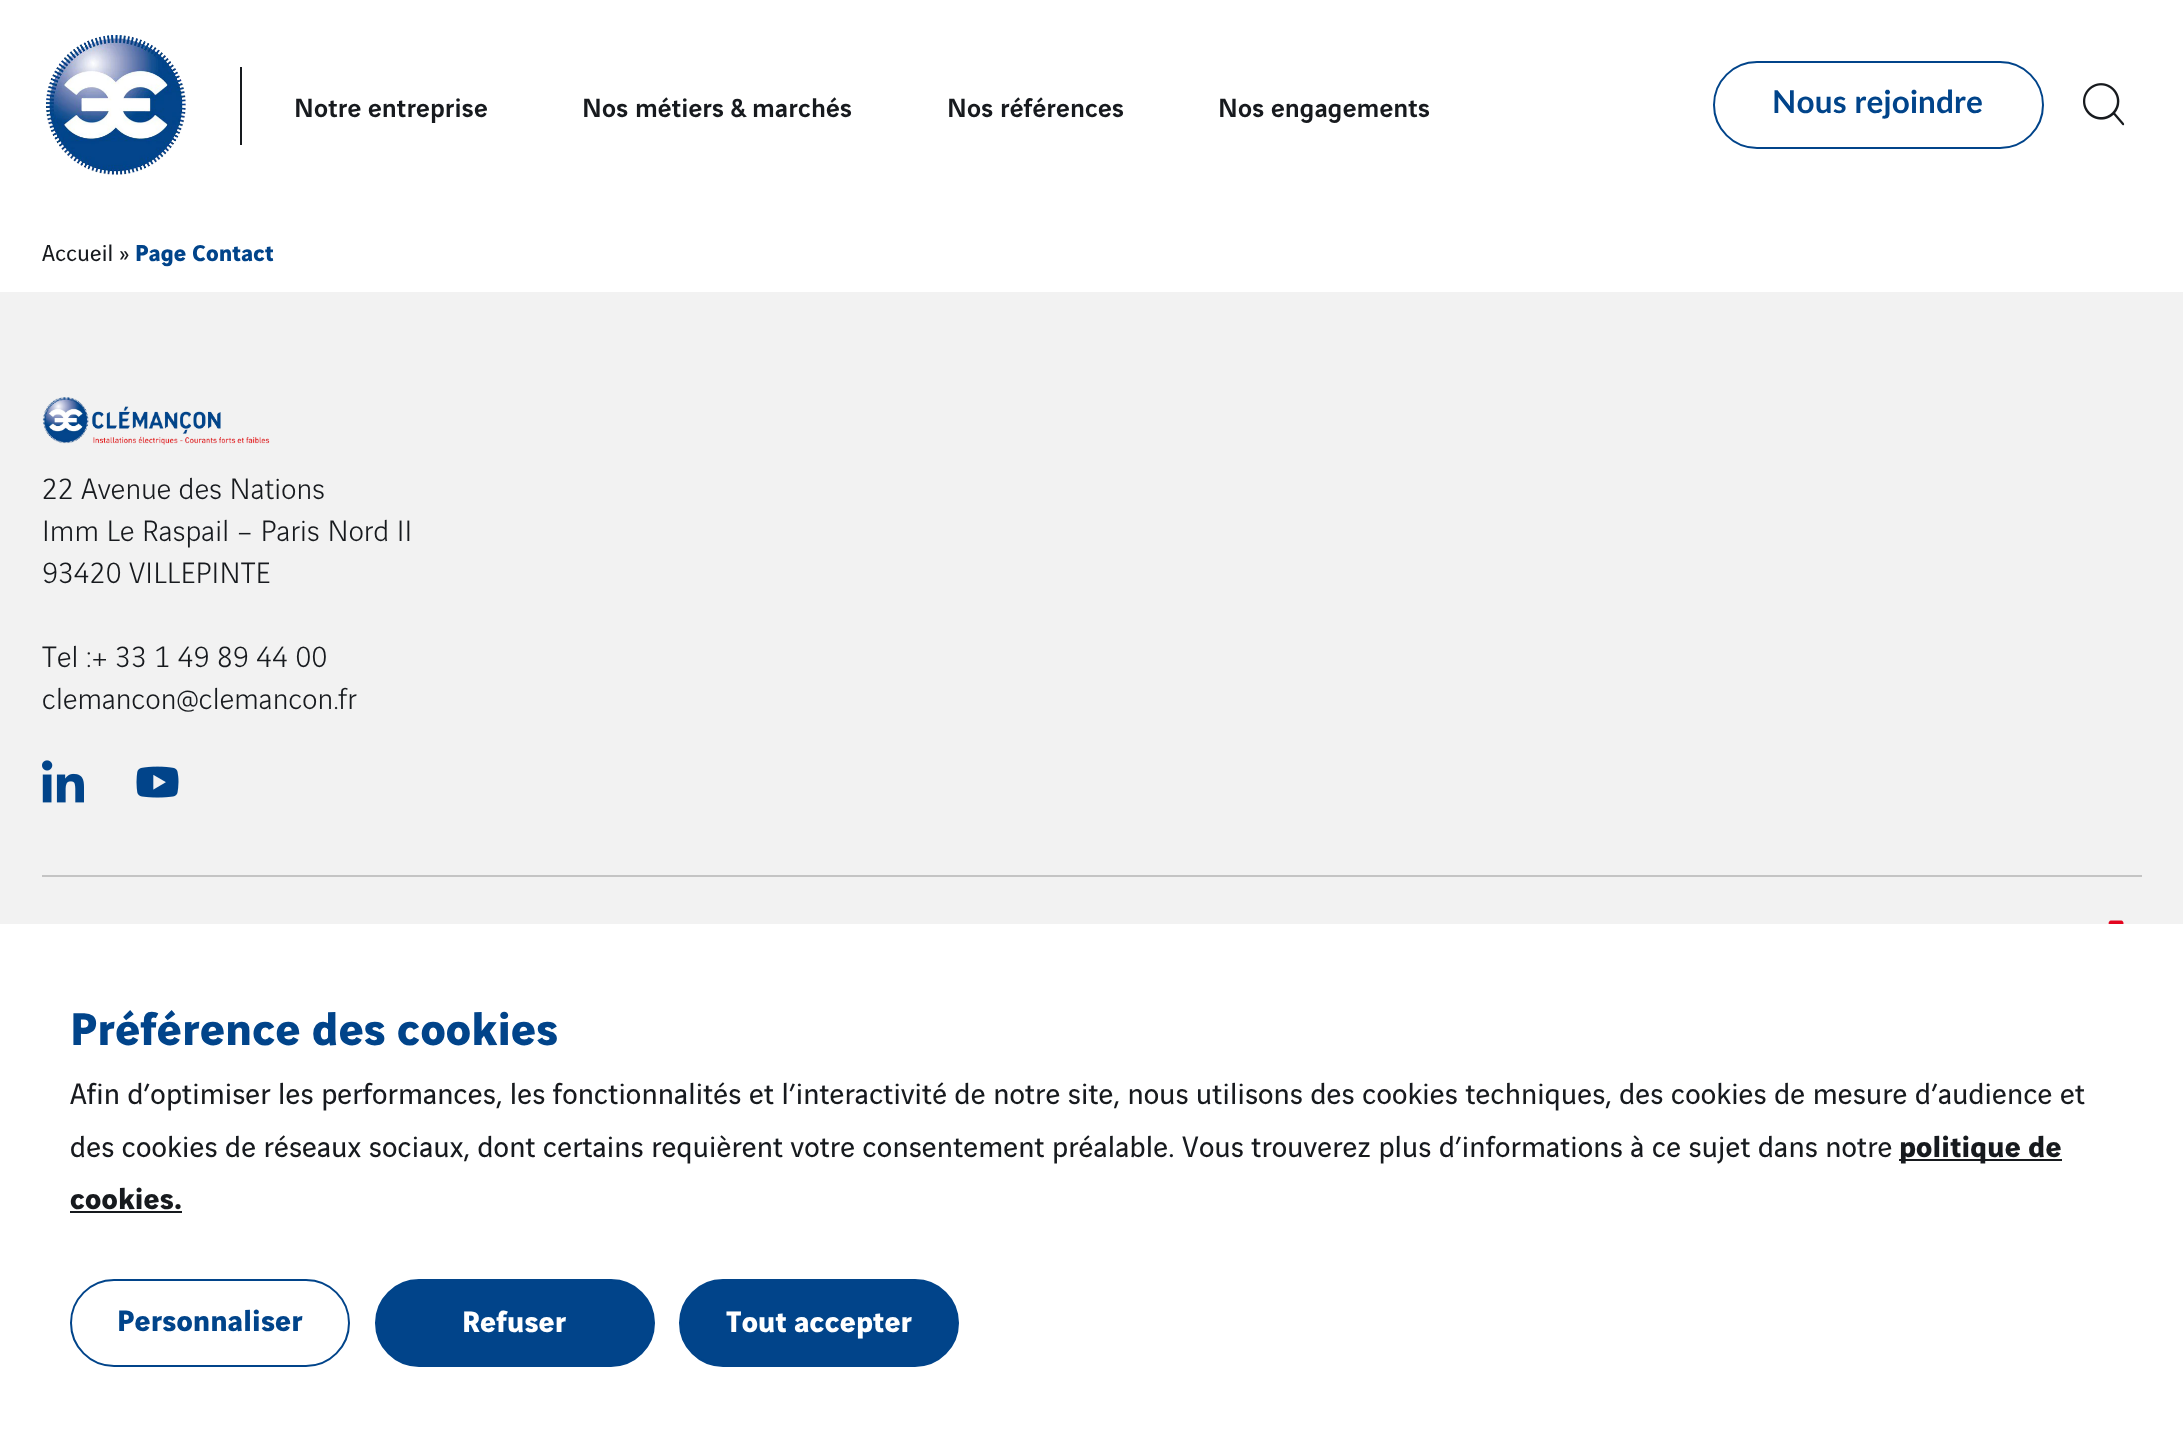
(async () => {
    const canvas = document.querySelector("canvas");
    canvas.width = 2183;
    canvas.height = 1449;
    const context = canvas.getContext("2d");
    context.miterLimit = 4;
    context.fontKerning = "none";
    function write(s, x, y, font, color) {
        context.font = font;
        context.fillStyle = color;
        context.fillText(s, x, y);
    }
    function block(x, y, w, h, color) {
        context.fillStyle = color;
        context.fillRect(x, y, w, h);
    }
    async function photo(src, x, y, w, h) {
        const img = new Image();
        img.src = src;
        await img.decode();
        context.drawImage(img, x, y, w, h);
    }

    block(0, 0, 2183, 1449, "rgb(255, 255, 255)");
    await photo("media/1.png", 45, 35, 141, 140);
    block(240, 67, 2, 78, "rgb(23, 26, 30)");
    context.letterSpacing = "0.18px";
    write("Notre entreprise", 294, 117, "500 28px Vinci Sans", "rgb(23, 26, 30)");
    write("Nos métiers & marchés", 582, 117, "500 28px Vinci Sans", "rgb(23, 26, 30)");
    write("Nos références", 947, 117, "500 28px Vinci Sans", "rgb(23, 26, 30)");
    write("Nos engagements", 1218, 117, "500 28px Vinci Sans", "rgb(23, 26, 30)");
    context.beginPath();
    context.roundRect(1714, 62, 329, 86, 43);
    context.strokeStyle = "rgb(1, 68, 138)";
    context.lineWidth = 2;
    context.stroke();
    write("Nous rejoindre", 1772, 113, "bold 31.5px Lato", "rgb(1, 68, 138)");
    await photo("media/2.png", 2083, 83, 42, 43);
    write("Accueil »", 42, 261, "24.5px Vinci Sans", "rgb(23, 26, 30)");
    write("Page Contact", 135, 261, "bold 24.5px Vinci Sans", "rgb(1, 68, 138)");
    block(0, 292, 2183, 632, "rgb(242, 242, 242)");
    block(42, 875, 2100, 2, "rgb(196, 196, 196)");
    await photo("media/3.png", 42, 397, 228, 48);
    write("22 Avenue des Nations", 42, 499, "300 31.5px Vinci Sans", "rgb(23, 26, 30)");
    write("Imm Le Raspail – Paris Nord II", 42, 541, "300 31.5px Vinci Sans", "rgb(23, 26, 30)");
    write("93420 VILLEPINTE", 42, 583, "300 31.5px Vinci Sans", "rgb(23, 26, 30)");
    write("Tel :+ 33 1 49 89 44 00", 42, 667, "300 31.5px Vinci Sans", "rgb(23, 26, 30)");
    write("clemancon@clemancon.fr", 42, 709, "300 31.5px Vinci Sans", "rgb(23, 26, 30)");
    await photo("media/4.png", 42, 760, 42, 43);
    await photo("media/5.png", 136, 766, 43, 32);
    await photo("media/6.png", 2108, 920, 16, 4);
    write("Préférence des cookies", 70, 1045, "bold 49px Vinci Sans", "rgb(1, 68, 138)");
    write("Afin d’optimiser les performances, les fonctionnalités et l’interactivité de notre site, nous utilisons des cookies techniques, des cookies de mesure d’audience et", 70, 1104, "31.5px Vinci Sans", "rgb(23, 26, 30)");
    write("des cookies de réseaux sociaux, dont certains requièrent votre consentement préalable. Vous trouverez plus d’informations à ce sujet dans notre", 70, 1157, "31.5px Vinci Sans", "rgb(23, 26, 30)");
    block(1899, 1159, 163, 2, "rgb(23, 26, 30)");
    write("politique de", 1899, 1157, "bold 31.5px Vinci Sans", "rgb(23, 26, 30)");
    write("cookies.", 70, 1209, "bold 31.5px Vinci Sans", "rgb(23, 26, 30)");
    block(70, 1211, 112, 2, "rgb(23, 26, 30)");
    context.beginPath();
    context.roundRect(71, 1280, 278, 86, 43);
    context.stroke();
    write("Personnaliser", 117, 1331, "bold 31.5px Vinci Sans", "rgb(1, 68, 138)");
    context.beginPath();
    context.roundRect(376, 1280, 278, 86, 43);
    context.fill();
    context.stroke();
    write("Refuser", 462, 1332, "bold 31.5px Vinci Sans", "rgb(255, 255, 255)");
    context.fillStyle = "rgb(1, 68, 138)";
    context.beginPath();
    context.roundRect(680, 1280, 278, 86, 43);
    context.fill();
    context.stroke();
    write("Tout accepter", 726, 1332, "bold 31.5px Vinci Sans", "rgb(255, 255, 255)");
})();
